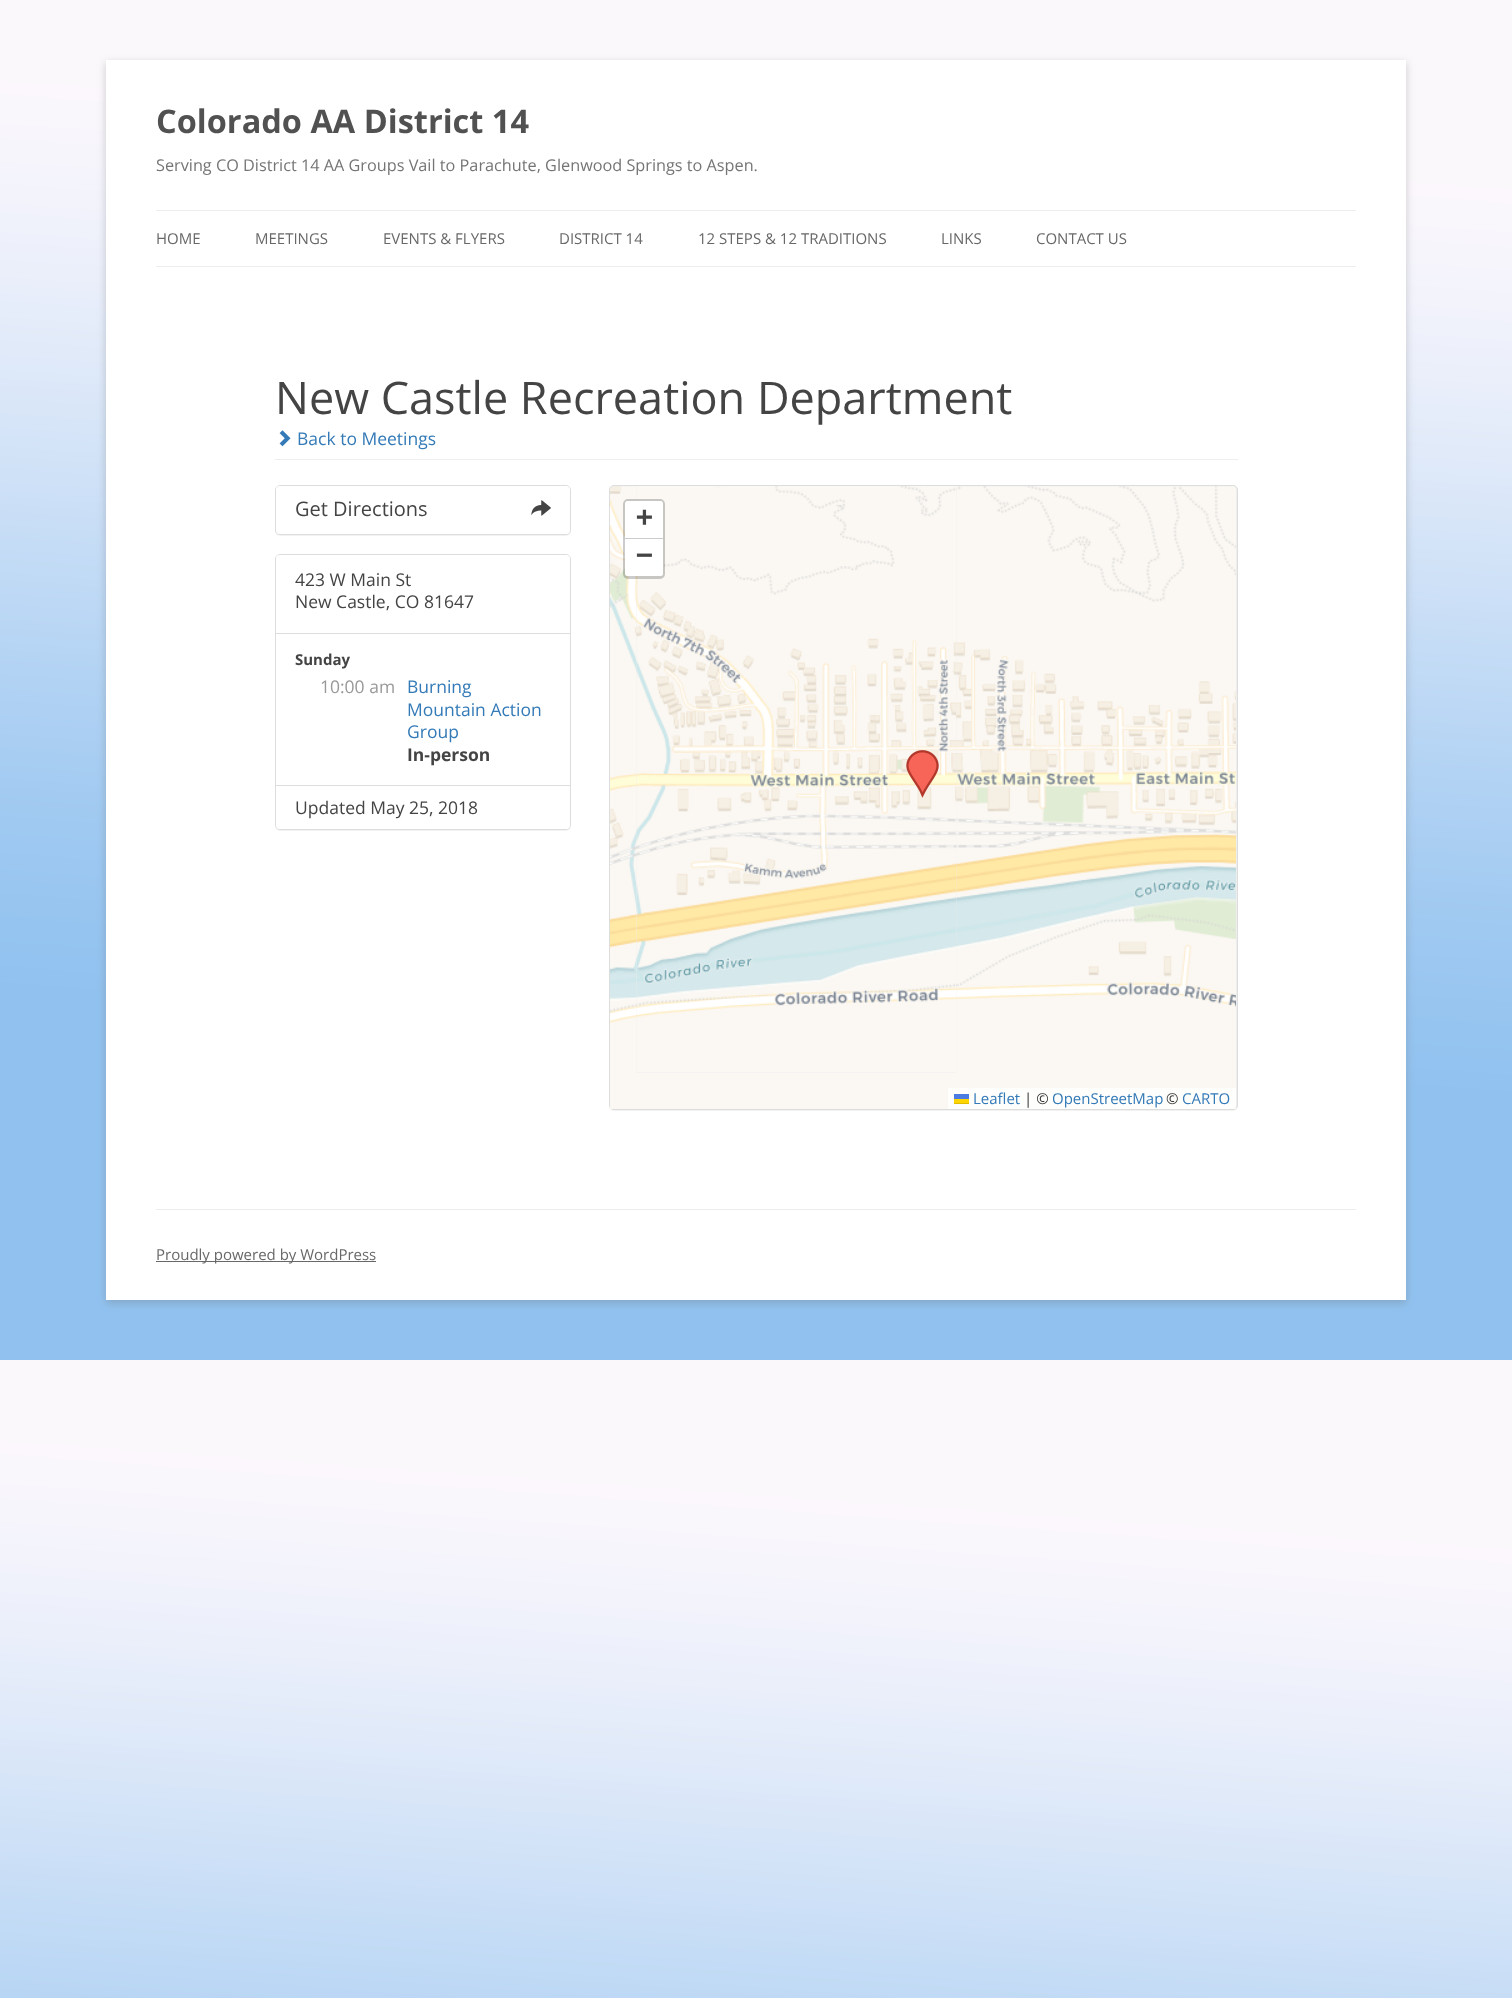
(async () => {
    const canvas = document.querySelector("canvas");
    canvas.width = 1512;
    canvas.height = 1998;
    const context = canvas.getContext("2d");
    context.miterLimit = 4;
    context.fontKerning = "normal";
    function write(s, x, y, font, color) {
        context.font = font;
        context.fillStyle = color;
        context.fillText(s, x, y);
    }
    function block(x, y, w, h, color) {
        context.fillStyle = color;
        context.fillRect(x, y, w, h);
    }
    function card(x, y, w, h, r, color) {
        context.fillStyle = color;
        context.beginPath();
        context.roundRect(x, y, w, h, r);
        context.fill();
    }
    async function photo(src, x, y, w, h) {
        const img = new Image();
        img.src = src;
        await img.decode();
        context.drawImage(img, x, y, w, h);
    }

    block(0, 0, 1512, 1998, "rgb(255, 255, 255)");
    await photo("media/1.png", 0, 0, 1512, 1998);
    context.fillStyle = "rgba(100, 100, 100, 0.3)";
    context.filter = "blur(4px)";
    context.beginPath();
    context.rect(106, 63, 1300, 1240);
    context.fill();
    context.filter = "none";
    block(106, 60, 1300, 1240, "rgb(255, 255, 255)");
    write("Colorado AA District 14", 156, 133, "bold 32.5px Open Sans", "rgb(81, 81, 81)");
    write("Serving CO District 14 AA Groups Vail to Parachute, Glenwood Springs to Aspen.", 156, 171, "16.25px Open Sans", "rgb(117, 117, 117)");
    block(156, 210, 1200, 1, "rgb(237, 237, 237)");
    block(156, 266, 1200, 1, "rgb(237, 237, 237)");
    write("HOME", 156, 244, "15px Open Sans", "rgb(104, 104, 104)");
    write("MEETINGS", 255, 244, "15px Open Sans", "rgb(104, 104, 104)");
    write("EVENTS & FLYERS", 383, 244, "15px Open Sans", "rgb(104, 104, 104)");
    write("DISTRICT 14", 559, 244, "15px Open Sans", "rgb(104, 104, 104)");
    write("12 STEPS & 12 TRADITIONS", 698, 244, "15px Open Sans", "rgb(104, 104, 104)");
    write("LINKS", 941, 244, "15px Open Sans", "rgb(104, 104, 104)");
    write("CONTACT US", 1036, 244, "15px Open Sans", "rgb(104, 104, 104)");
    block(275, 459, 963, 1, "rgb(238, 238, 238)");
    write("New Castle Recreation Department", 275, 414, "45px Open Sans", "rgb(68, 68, 68)");
    await photo("media/2.png", 279, 430, 12, 17);
    write("Back to Meetings", 297, 445, "17.5px Open Sans", "rgb(51, 122, 183)");
    context.fillStyle = "rgba(0, 0, 0, 0.05)";
    context.filter = "blur(0.5px)";
    context.beginPath();
    context.roundRect(275, 486, 296, 50, 5);
    context.fill();
    context.filter = "none";
    context.beginPath();
    context.roundRect(275.5, 485.5, 295, 49, 4.5);
    context.strokeStyle = "rgb(221, 221, 221)";
    context.stroke();
    card(276, 486, 294, 48, 4, "rgb(255, 255, 255)");
    write("Get Directions", 295, 516, "20px Open Sans", "rgb(68, 68, 68)");
    await photo("media/3.png", 531, 500, 20, 16);
    context.fillStyle = "rgba(0, 0, 0, 0.05)";
    context.filter = "blur(0.5px)";
    context.beginPath();
    context.roundRect(275, 555, 296, 276, 5);
    context.fill();
    context.filter = "none";
    context.fillStyle = "rgb(255, 255, 255)";
    context.beginPath();
    context.roundRect(275.5, 554.5, 295, 275, 4.5);
    context.fill();
    context.stroke();
    context.beginPath();
    context.roundRect(276, 555, 294, 79, [4, 4, 0, 0]);
    context.fill();
    block(276, 633, 294, 1, "rgb(221, 221, 221)");
    write("423 W Main St", 295, 586, "17.5px Open Sans", "rgb(68, 68, 68)");
    write("New Castle, CO 81647", 295, 608, "17.5px Open Sans", "rgb(68, 68, 68)");
    write("Sunday", 295, 665, "bold 15px Open Sans", "rgb(68, 68, 68)");
    write("10:00 am", 320, 693, "17.5px Open Sans", "rgb(153, 153, 153)");
    write("Burning", 407, 693, "17.5px Open Sans", "rgb(51, 122, 183)");
    write("Mountain Action", 407, 716, "17.5px Open Sans", "rgb(51, 122, 183)");
    write("Group", 407, 738, "17.5px Open Sans", "rgb(51, 122, 183)");
    write("In-person", 407, 761, "bold 17.5px Open Sans", "rgb(68, 68, 68)");
    context.fillStyle = "rgb(255, 255, 255)";
    context.beginPath();
    context.roundRect(276, 785, 294, 44, [0, 0, 4, 4]);
    context.fill();
    block(276, 785, 294, 1, "rgb(221, 221, 221)");
    write("Updated May 25, 2018", 295, 814, "17.5px Open Sans", "rgb(68, 68, 68)");
    context.fillStyle = "rgba(0, 0, 0, 0.05)";
    context.filter = "blur(0.5px)";
    context.beginPath();
    context.roundRect(609, 486, 629, 625, 5);
    context.fill();
    context.filter = "none";
    context.fillStyle = "rgb(238, 238, 238)";
    context.beginPath();
    context.roundRect(609.5, 485.5, 628, 624, 4.5);
    context.fill();
    context.stroke();
    await photo("media/4.png", 610, 486, 26, 267);
    await photo("media/8.png", 636, 752, 321, 321);
    await photo("media/5.png", 636, 486, 320, 267);
    await photo("media/9.png", 956, 752, 280, 321);
    await photo("media/6.png", 956, 486, 280, 267);
    await photo("media/7.png", 610, 753, 26, 320);
    block(610, 1073, 626, 36, "rgb(251, 248, 243)");
    await photo("media/10.png", 906, 750, 33, 48);
    context.beginPath();
    context.roundRect(624.5, 500.5, 39, 77, 3.5);
    context.strokeStyle = "rgba(0, 0, 0, 0.2)";
    context.lineWidth = 3;
    context.stroke();
    context.fillStyle = "rgb(255, 255, 255)";
    context.beginPath();
    context.roundRect(625, 501, 38, 38, [2.5, 2.5, 0, 0]);
    context.fill();
    block(625, 538, 38, 1, "rgb(204, 204, 204)");
    write("+", 636, 526, "bold 28px DejaVu Sans Mono", "rgb(68, 68, 68)");
    context.fillStyle = "rgb(255, 255, 255)";
    context.beginPath();
    context.roundRect(625, 539, 38, 37, [0, 0, 2.5, 2.5]);
    context.fill();
    write("−", 636, 564, "bold 28px DejaVu Sans Mono", "rgb(68, 68, 68)");
    context.fillStyle = "rgb(254, 254, 253)";
    context.beginPath();
    context.roundRect(948, 1088, 288, 21, [0, 0, 4, 0]);
    context.fill();
    write("Leaflet", 973, 1104, "15px Open Sans", "rgb(51, 122, 183)");
    block(954, 1094, 15, 5, "rgb(76, 123, 225)");
    block(954, 1099, 15, 4, "rgb(255, 213, 0)");
    block(954, 1103, 15, 1, "rgb(224, 188, 0)");
    write("| ©", 1024, 1104, "15px Open Sans", "rgb(51, 51, 51)");
    write("OpenStreetMap", 1052, 1104, "15px Open Sans", "rgb(51, 122, 183)");
    write("©", 1166, 1104, "15px Open Sans", "rgb(51, 51, 51)");
    write("CARTO", 1182, 1104, "15px Open Sans", "rgb(51, 122, 183)");
    block(156, 1209, 1200, 1, "rgb(237, 237, 237)");
    block(156, 1261, 220, 1, "rgb(104, 104, 104)");
    write("Proudly powered by WordPress", 156, 1260, "15px Open Sans", "rgb(104, 104, 104)");
})();
